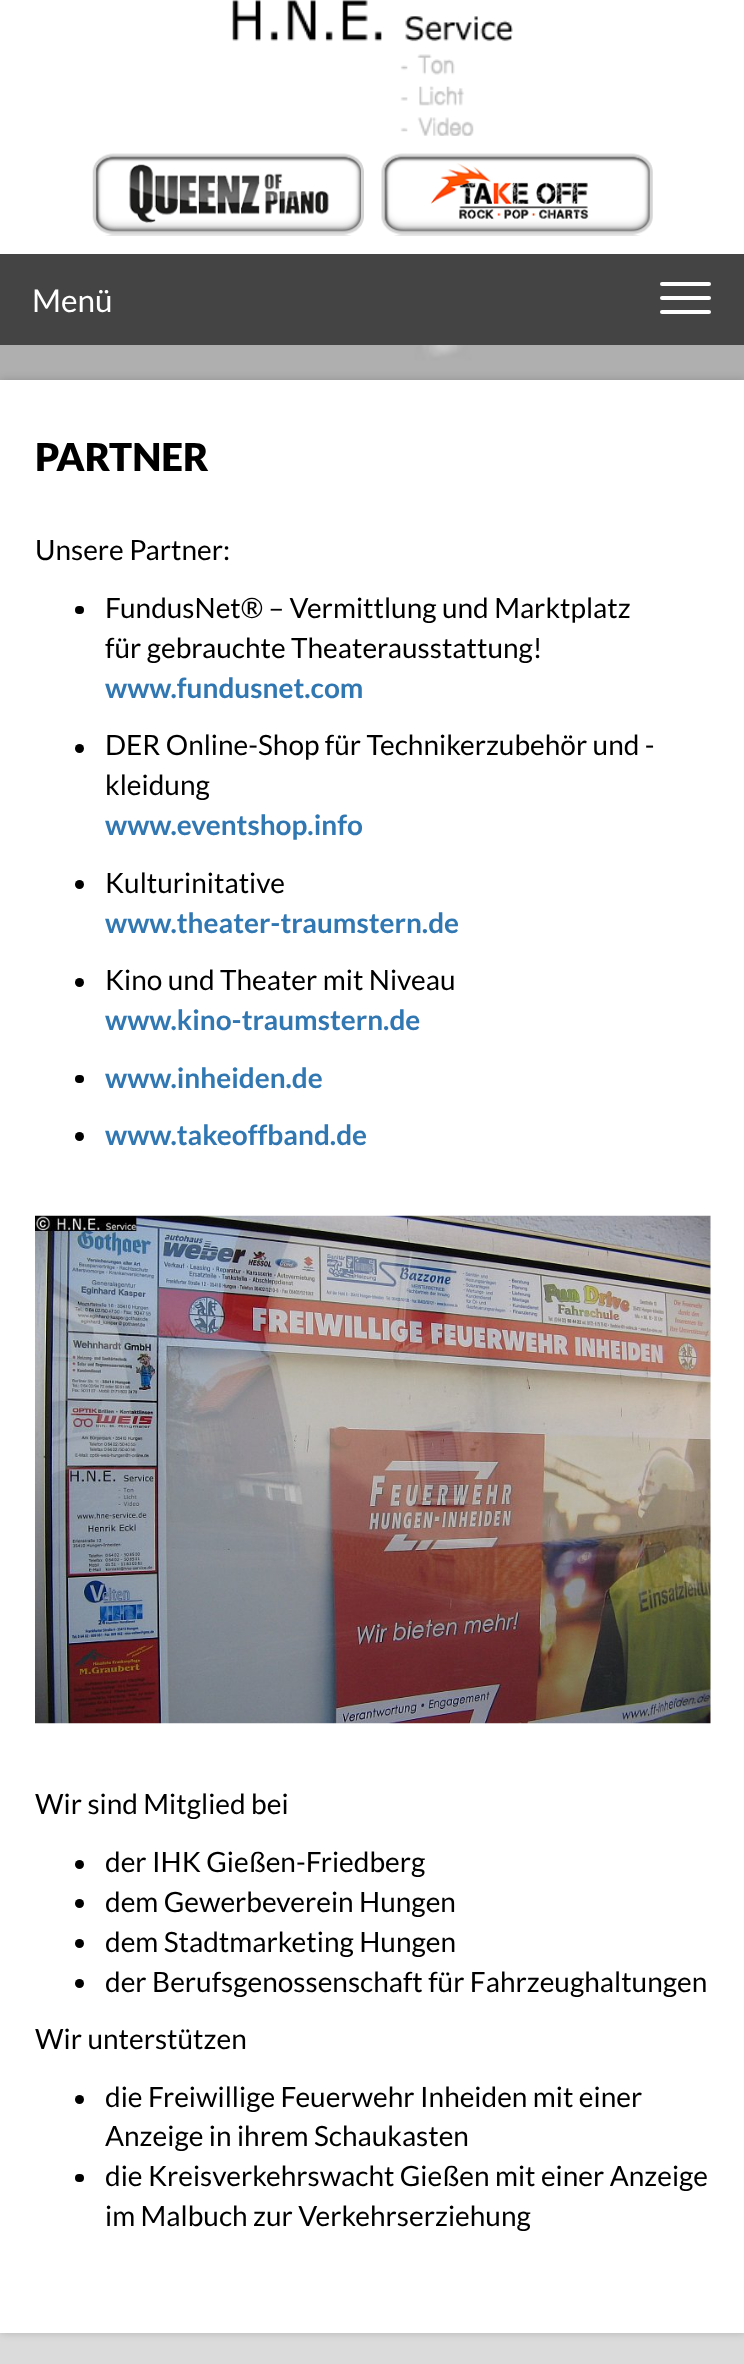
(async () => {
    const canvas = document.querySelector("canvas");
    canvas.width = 744;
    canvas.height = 2364;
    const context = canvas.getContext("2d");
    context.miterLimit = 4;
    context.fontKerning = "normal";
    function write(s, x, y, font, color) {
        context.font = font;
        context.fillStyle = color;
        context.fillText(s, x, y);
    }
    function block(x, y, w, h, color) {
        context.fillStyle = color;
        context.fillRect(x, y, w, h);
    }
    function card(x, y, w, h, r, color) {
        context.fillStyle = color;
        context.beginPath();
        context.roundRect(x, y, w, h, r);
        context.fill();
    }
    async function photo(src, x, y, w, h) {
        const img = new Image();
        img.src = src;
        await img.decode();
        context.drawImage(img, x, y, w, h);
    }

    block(0, 0, 744, 2364, "rgb(219, 219, 219)");
    await photo("media/1.png", 0, 345, 744, 35);
    block(0, 0, 744, 254, "rgb(255, 255, 255)");
    await photo("media/2.png", 232, 0, 281, 136);
    await photo("media/3.png", 92, 153, 272, 83);
    await photo("media/4.png", 381, 153, 272, 83);
    block(0, 254, 744, 91, "rgb(68, 68, 68)");
    write("Menü", 32, 312, "31.5px Lato", "rgb(255, 255, 255)");
    card(660, 282, 51, 4, 2, "rgb(255, 255, 255)");
    card(660, 296, 51, 4, 2, "rgb(255, 255, 255)");
    card(660, 310, 51, 4, 2, "rgb(255, 255, 255)");
    context.fillStyle = "rgba(0, 0, 0, 0.18)";
    context.filter = "blur(4.5px)";
    context.beginPath();
    context.rect(0, 380, 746, 1953);
    context.fill();
    context.filter = "none";
    block(0, 380, 744, 1953, "rgb(255, 255, 255)");
    write("PARTNER", 35, 471, "900 38.5px Lato", "rgb(0, 0, 0)");
    write("Unsere Partner:", 35, 560, "28px Lato", "rgb(0, 0, 0)");
    card(75, 606, 9, 8, 4, "rgb(0, 0, 0)");
    write("FundusNet® – Vermittlung und Marktplatz", 105, 618, "28px Lato", "rgb(0, 0, 0)");
    write("für gebrauchte Theaterausstattung!", 105, 658, "28px Lato", "rgb(0, 0, 0)");
    write("www.fundusnet.com", 105, 698, "bold 28px Lato", "rgb(49, 119, 178)");
    context.fillStyle = "rgb(0, 0, 0)";
    context.beginPath();
    context.arc(79.5, 748.5, 4.5, 0, Math.PI * 2);
    context.fill();
    write("DER Online-Shop für Technikerzubehör und -", 105, 755, "28px Lato", "rgb(0, 0, 0)");
    write("kleidung", 105, 795, "28px Lato", "rgb(0, 0, 0)");
    write("www.eventshop.info", 105, 835, "bold 28px Lato", "rgb(49, 119, 178)");
    context.fillStyle = "rgb(0, 0, 0)";
    context.beginPath();
    context.arc(79.5, 884.5, 4.5, 0, Math.PI * 2);
    context.fill();
    write("Kulturinitative", 105, 893, "28px Lato", "rgb(0, 0, 0)");
    write("www.theater-traumstern.de", 105, 933, "bold 28px Lato", "rgb(49, 119, 178)");
    context.fillStyle = "rgb(0, 0, 0)";
    context.beginPath();
    context.arc(79.5, 982.5, 4.5, 0, Math.PI * 2);
    context.fill();
    write("Kino und Theater mit Niveau", 105, 990, "28px Lato", "rgb(0, 0, 0)");
    write("www.kino-traumstern.de", 105, 1030, "bold 28px Lato", "rgb(49, 119, 178)");
    card(75, 1075, 9, 8, 4, "rgb(0, 0, 0)");
    write("www.inheiden.de", 105, 1088, "bold 28px Lato", "rgb(49, 119, 178)");
    context.fillStyle = "rgb(0, 0, 0)";
    context.beginPath();
    context.arc(79.5, 1136.5, 4.5, 0, Math.PI * 2);
    context.fill();
    write("www.takeoffband.de", 105, 1145, "bold 28px Lato", "rgb(49, 119, 178)");
    await photo("media/5.png", 35, 1215, 676, 509);
    write("Wir sind Mitglied bei", 35, 1814, "28px Lato", "rgb(0, 0, 0)");
    context.beginPath();
    context.arc(79.5, 1864.5, 4.5, 0, Math.PI * 2);
    context.fill();
    write("der IHK Gießen-Friedberg", 105, 1872, "28px Lato", "rgb(0, 0, 0)");
    context.beginPath();
    context.arc(79.5, 1903.5, 4.5, 0, Math.PI * 2);
    context.fill();
    write("dem Gewerbeverein Hungen", 105, 1912, "28px Lato", "rgb(0, 0, 0)");
    context.beginPath();
    context.arc(79.5, 1943.5, 4.5, 0, Math.PI * 2);
    context.fill();
    write("dem Stadtmarketing Hungen", 105, 1952, "28px Lato", "rgb(0, 0, 0)");
    context.beginPath();
    context.arc(79.5, 1983.5, 4.5, 0, Math.PI * 2);
    context.fill();
    write("der Berufsgenossenschaft für Fahrzeughaltungen", 105, 1992, "28px Lato", "rgb(0, 0, 0)");
    write("Wir unterstützen", 35, 2049, "28px Lato", "rgb(0, 0, 0)");
    context.beginPath();
    context.arc(79.5, 2099.5, 4.5, 0, Math.PI * 2);
    context.fill();
    write("die Freiwillige Feuerwehr Inheiden mit einer", 105, 2107, "28px Lato", "rgb(0, 0, 0)");
    write("Anzeige in ihrem Schaukasten", 105, 2146, "28px Lato", "rgb(0, 0, 0)");
    card(75, 2174, 9, 8, 4, "rgb(0, 0, 0)");
    write("die Kreisverkehrswacht Gießen mit einer Anzeige", 105, 2186, "28px Lato", "rgb(0, 0, 0)");
    write("im Malbuch zur Verkehrserziehung", 105, 2226, "28px Lato", "rgb(0, 0, 0)");
})();
